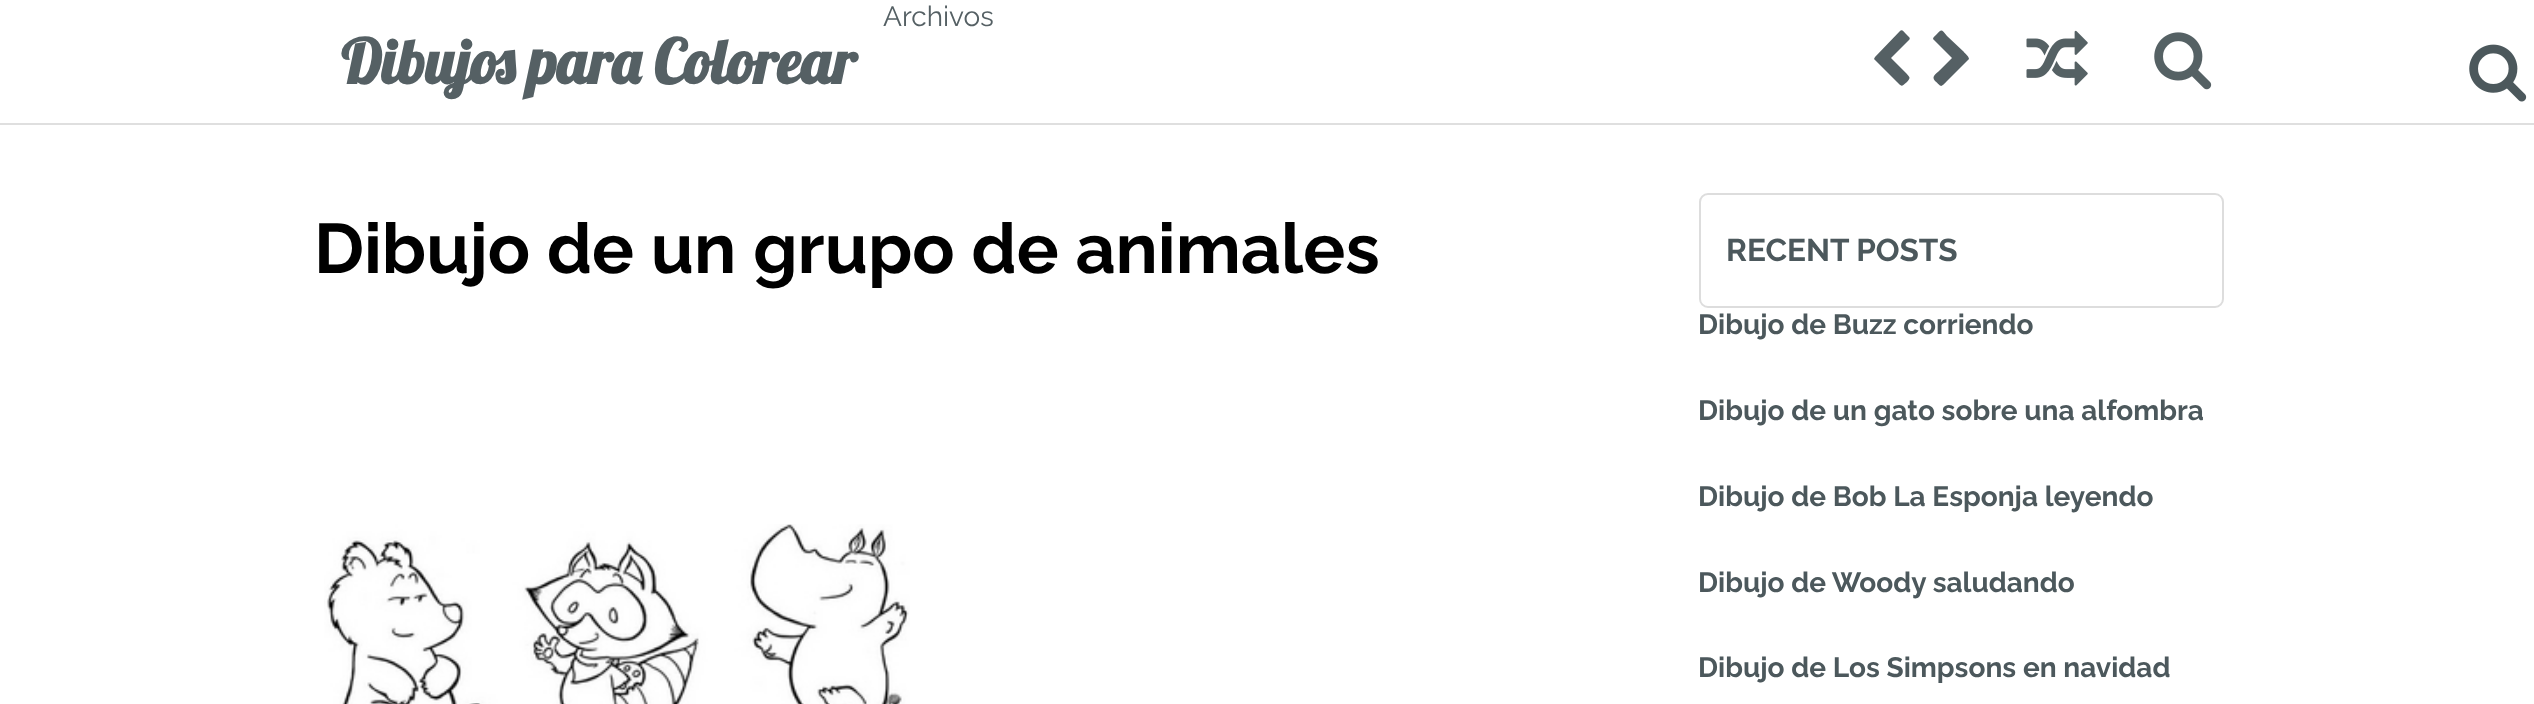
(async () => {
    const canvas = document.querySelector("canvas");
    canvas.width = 2534;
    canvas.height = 704;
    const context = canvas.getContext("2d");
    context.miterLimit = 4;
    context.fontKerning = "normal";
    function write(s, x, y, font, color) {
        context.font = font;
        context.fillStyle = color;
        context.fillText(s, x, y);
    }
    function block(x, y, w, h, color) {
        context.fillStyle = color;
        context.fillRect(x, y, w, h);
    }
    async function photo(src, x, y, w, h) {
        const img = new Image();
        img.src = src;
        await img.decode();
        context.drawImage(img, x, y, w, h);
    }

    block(0, 0, 2534, 704, "rgb(255, 255, 255)");
    block(0, 123, 2534, 2, "rgb(223, 223, 223)");
    write("Archivos", 883, 26, "28px Raleway", "rgb(85, 96, 100)");
    write("Dibujos para Colorear", 341, 84, "bold 61.25px Lobster", "rgb(85, 96, 100)");
    context.beginPath();
    context.moveTo(1909, 40);
    context.lineTo(1891, 58);
    context.lineTo(1906, 73);
    context.bezierCurveTo(1910, 78, 1911, 77, 1907, 82);
    context.bezierCurveTo(1901, 87, 1902, 87, 1896, 81);
    context.lineTo(1874, 59);
    context.lineTo(1875, 57);
    context.lineTo(1900, 31);
    context.bezierCurveTo(1902, 29, 1904, 32, 1906, 34);
    context.lineTo(1909, 37);
    context.bezierCurveTo(1910, 38, 1910, 39, 1909, 40);
    context.closePath();
    context.fill();
    context.beginPath();
    context.moveTo(1968, 60);
    context.lineTo(1947, 81);
    context.bezierCurveTo(1940, 88, 1942, 87, 1935, 81);
    context.bezierCurveTo(1931, 76, 1936, 74, 1940, 70);
    context.lineTo(1952, 58);
    context.lineTo(1933, 39);
    context.bezierCurveTo(1933, 37, 1935, 36, 1936, 35);
    context.bezierCurveTo(1942, 29, 1941, 29, 1947, 36);
    context.lineTo(1964, 52);
    context.bezierCurveTo(1964, 53, 1969, 56, 1969, 59);
    context.closePath();
    context.fill();
    await photo("media/1.png", 2026, 30, 62, 56);
    await photo("media/2.png", 2154, 32, 58, 58);
    write("Dibujo de un grupo de animales", 314, 273, "bold 70px Raleway", "rgb(0, 0, 0)");
    await photo("media/3.png", 324, 524, 586, 180);
    await photo("media/4.png", 2469, 44, 58, 58);
    context.beginPath();
    context.roundRect(1700, 194, 523, 113, 8);
    context.strokeStyle = "rgb(221, 221, 221)";
    context.lineWidth = 2;
    context.stroke();
    write("RECENT POSTS", 1726, 261, "bold 31.5px Raleway", "rgb(76, 88, 92)");
    write("Dibujo de Buzz corriendo", 1698, 334, "bold 28px Raleway", "rgb(76, 88, 92)");
    write("Dibujo de un gato sobre una alfombra", 1698, 420, "bold 28px Raleway", "rgb(76, 88, 92)");
    write("Dibujo de Bob La Esponja leyendo", 1698, 506, "bold 28px Raleway", "rgb(76, 88, 92)");
    write("Dibujo de Woody saludando", 1698, 592, "bold 28px Raleway", "rgb(76, 88, 92)");
    write("Dibujo de Los Simpsons en navidad", 1698, 677, "bold 28px Raleway", "rgb(76, 88, 92)");
})();
